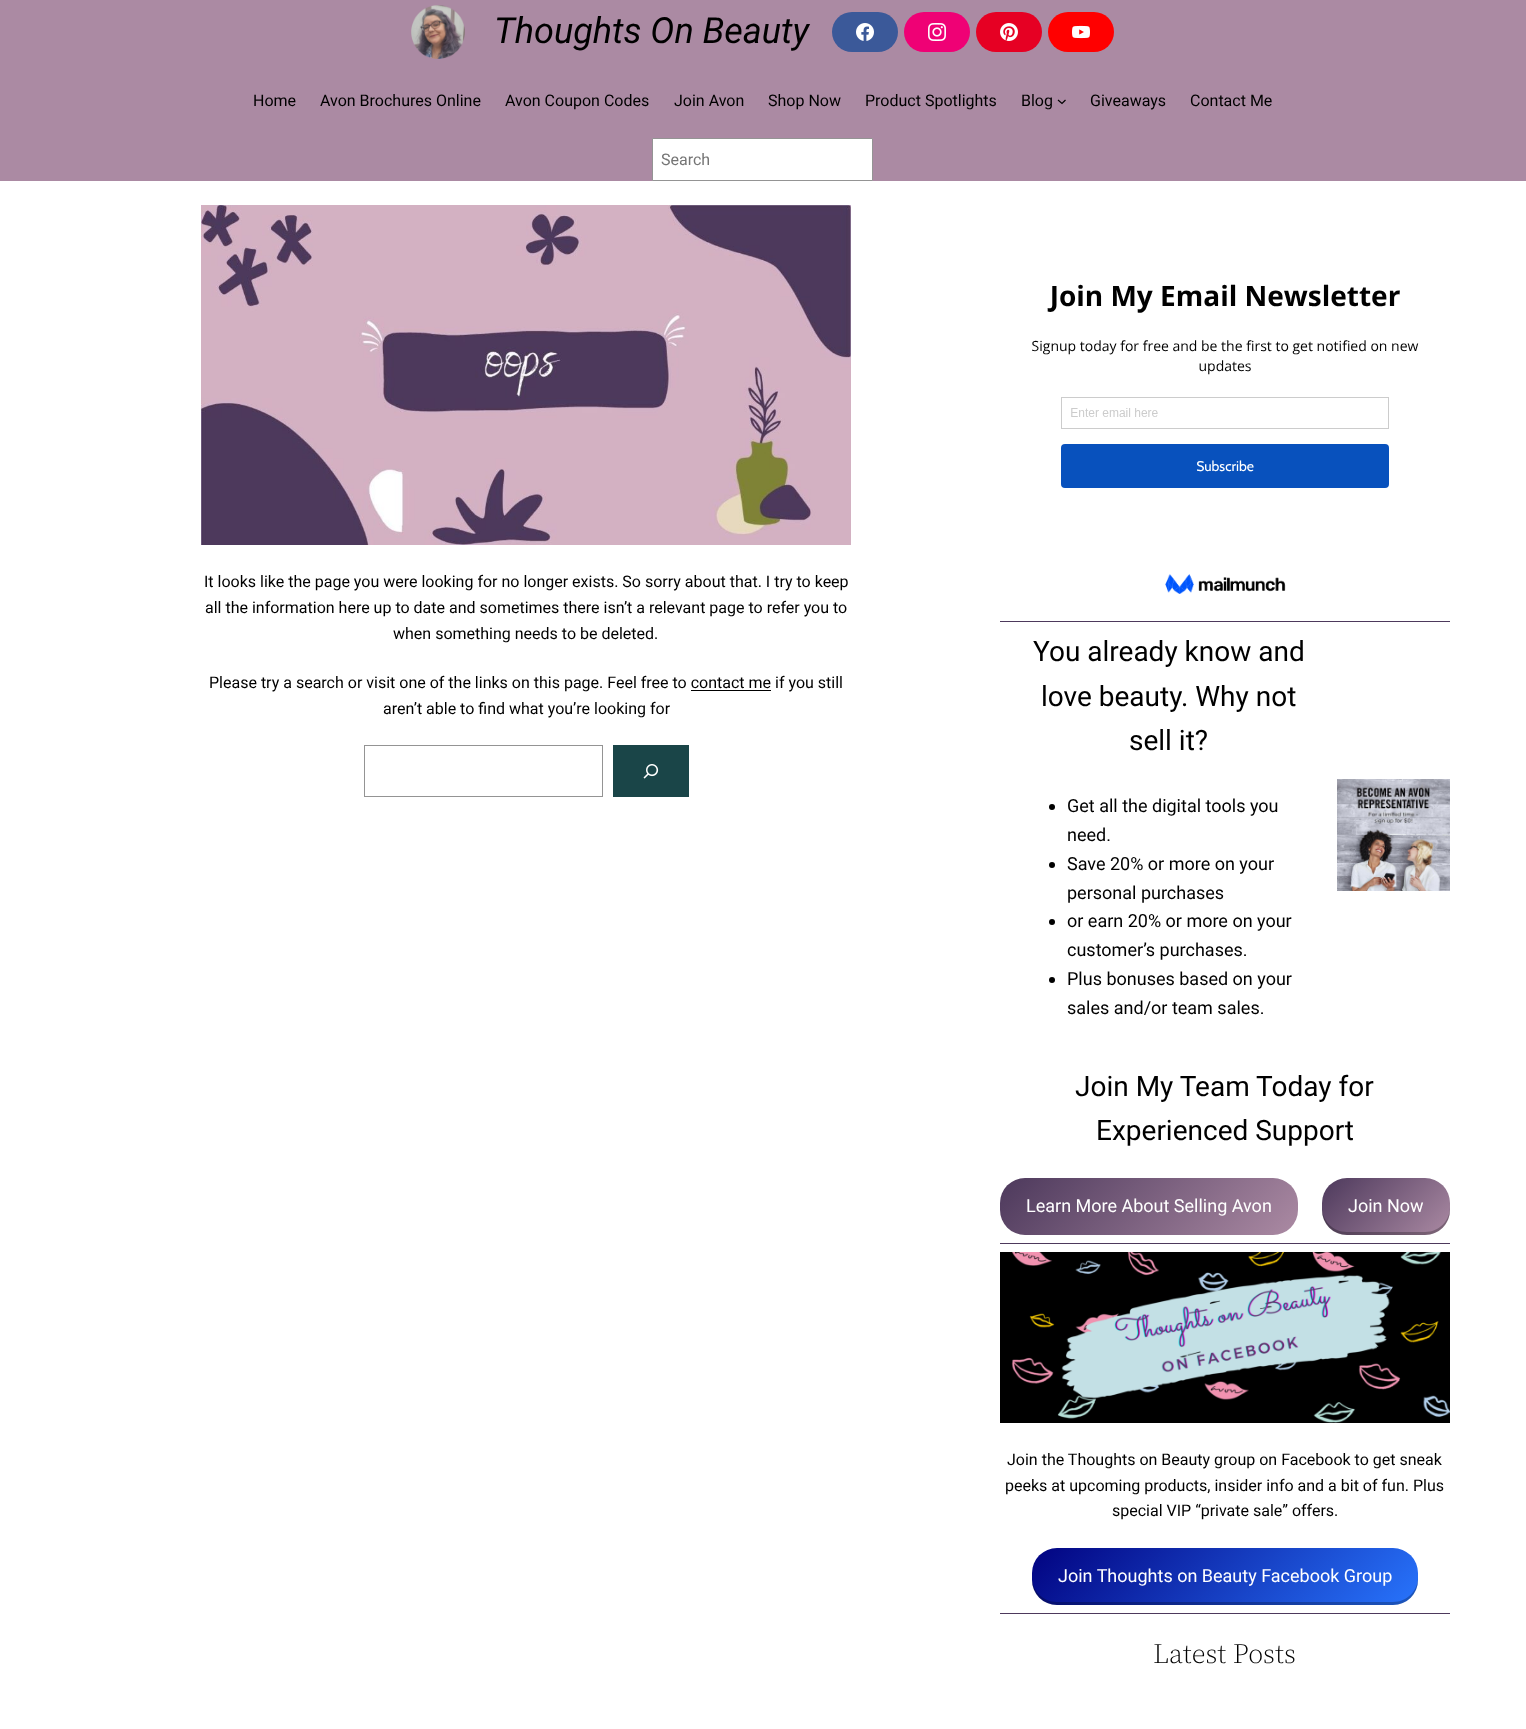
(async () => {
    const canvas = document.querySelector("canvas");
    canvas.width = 1526;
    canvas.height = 1729;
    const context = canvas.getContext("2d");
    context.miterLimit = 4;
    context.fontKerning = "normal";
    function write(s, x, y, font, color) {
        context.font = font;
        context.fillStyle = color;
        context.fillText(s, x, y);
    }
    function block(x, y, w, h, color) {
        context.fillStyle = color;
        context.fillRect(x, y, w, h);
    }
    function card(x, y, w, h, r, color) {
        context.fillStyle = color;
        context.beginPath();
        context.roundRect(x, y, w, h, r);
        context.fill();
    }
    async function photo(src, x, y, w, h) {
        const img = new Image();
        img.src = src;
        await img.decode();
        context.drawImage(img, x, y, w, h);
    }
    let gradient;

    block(0, 0, 1526, 1729, "rgb(255, 255, 255)");
    block(0, 0, 1526, 181, "rgb(171, 138, 163)");
    await photo("media/1.png", 411, 5, 54, 54);
    write("Thoughts On Beauty", 494, 43, "italic 36px Roboto", "rgb(0, 0, 0)");
    card(832, 12, 66, 40, 20, "rgb(59, 89, 153)");
    await photo("media/2.png", 856, 23, 18, 18);
    card(904, 12, 66, 40, 20, "rgb(239, 1, 117)");
    await photo("media/3.png", 928, 23, 18, 18);
    card(976, 12, 66, 40, 20, "rgb(230, 0, 35)");
    await photo("media/4.png", 1000, 23, 18, 18);
    card(1048, 12, 66, 40, 20, "rgb(255, 0, 0)");
    await photo("media/5.png", 1072, 25, 18, 14);
    write("Home", 253, 106, "16px Roboto", "rgb(0, 0, 0)");
    write("Avon Brochures Online", 320, 106, "16px Roboto", "rgb(0, 0, 0)");
    write("Avon Coupon Codes", 505, 106, "16px Roboto", "rgb(0, 0, 0)");
    write("Join Avon", 674, 106, "16px Roboto", "rgb(0, 0, 0)");
    write("Shop Now", 768, 106, "16px Roboto", "rgb(0, 0, 0)");
    write("Product Spotlights", 865, 106, "16px Roboto", "rgb(0, 0, 0)");
    write("Blog", 1021, 106, "16px Roboto", "rgb(0, 0, 0)");
    context.beginPath();
    context.moveTo(1058, 100);
    context.lineTo(1062, 103.5);
    context.lineTo(1065.5, 100);
    context.strokeStyle = "rgb(0, 0, 0)";
    context.lineWidth = 1.2;
    context.stroke();
    write("Giveaways", 1090, 106, "16px Roboto", "rgb(0, 0, 0)");
    write("Contact Me", 1190, 106, "16px Roboto", "rgb(0, 0, 0)");
    context.fillStyle = "rgb(255, 255, 255)";
    context.beginPath();
    context.rect(652.5, 138.5, 220, 42);
    context.fill();
    context.strokeStyle = "rgb(148, 148, 148)";
    context.lineWidth = 1;
    context.stroke();
    write("Search", 661, 165, "16px Roboto", "rgb(117, 117, 117)");
    await photo("media/6.png", 201, 205, 650, 340);
    write("It looks like the page you were looking for no longer exists. So sorry about that. I try to keep", 204, 587, "16px Roboto", "rgb(0, 0, 0)");
    write("all the information here up to date and sometimes there isn’t a relevant page to refer you to", 205, 613, "16px Roboto", "rgb(0, 0, 0)");
    write("when something needs to be deleted.", 393, 639, "16px Roboto", "rgb(0, 0, 0)");
    write("Please try a search or visit one of the links on this page. Feel free to contact me if you still", 209, 688, "16px Roboto", "rgb(0, 0, 0)");
    block(691, 690, 80, 1, "rgb(0, 0, 0)");
    write("aren’t able to find what you’re looking for", 383, 714, "16px Roboto", "rgb(0, 0, 0)");
    context.strokeRect(364.5, 745.5, 238, 51);
    block(613, 745, 76, 52, "rgb(26, 69, 72)");
    await photo("media/7.png", 643, 764, 16, 15);
    await photo("media/8.png", 1032, 284, 387, 310);
    block(1000, 621, 450, 1, "rgb(77, 57, 92)");
    write("You already know and", 1033, 661, "28px Roboto", "rgb(0, 0, 0)");
    write("love beauty. Why not", 1041, 706, "28px Roboto", "rgb(0, 0, 0)");
    write("sell it?", 1129, 750, "28px Roboto", "rgb(0, 0, 0)");
    context.beginPath();
    context.arc(1052, 807, 3, 0, Math.PI * 2);
    context.fill();
    write("Get all the digital tools you", 1067, 812, "18px Roboto", "rgb(0, 0, 0)");
    write("need.", 1067, 841, "18px Roboto", "rgb(0, 0, 0)");
    context.beginPath();
    context.arc(1052, 865, 3, 0, Math.PI * 2);
    context.fill();
    write("Save 20% or more on your", 1067, 870, "18px Roboto", "rgb(0, 0, 0)");
    write("personal purchases", 1067, 899, "18px Roboto", "rgb(0, 0, 0)");
    context.beginPath();
    context.arc(1052, 922, 3, 0, Math.PI * 2);
    context.fill();
    write("or earn 20% or more on your", 1067, 927, "18px Roboto", "rgb(0, 0, 0)");
    write("customer’s purchases.", 1067, 956, "18px Roboto", "rgb(0, 0, 0)");
    context.beginPath();
    context.arc(1052, 980, 3, 0, Math.PI * 2);
    context.fill();
    write("Plus bonuses based on your", 1067, 985, "18px Roboto", "rgb(0, 0, 0)");
    write("sales and/or team sales.", 1067, 1014, "18px Roboto", "rgb(0, 0, 0)");
    await photo("media/9.png", 1337, 779, 113, 112);
    write("Join My Team Today for", 1075, 1096, "28px Roboto", "rgb(0, 0, 0)");
    write("Experienced Support", 1096, 1140, "28px Roboto", "rgb(0, 0, 0)");
    gradient = context.createLinearGradient(1060, 1118, 1238, 1295);
    gradient.addColorStop(0, "rgb(77, 57, 92)");
    gradient.addColorStop(1, "rgb(171, 138, 163)");
    context.fillStyle = gradient;
    context.beginPath();
    context.roundRect(1000, 1178, 298, 57, 25);
    context.fill();
    write("Learn More About Selling Avon", 1026, 1212, "18px Roboto", "rgb(255, 255, 255)");
    gradient = context.createLinearGradient(1340, 1160, 1432, 1253);
    gradient.addColorStop(0, "rgb(77, 57, 92)");
    gradient.addColorStop(1, "rgb(171, 138, 163)");
    context.fillStyle = gradient;
    context.beginPath();
    context.roundRect(1322, 1178, 128, 57, 25);
    context.fill();
    context.fillStyle = "rgba(0, 0, 0, 0.25)";
    context.beginPath();
    context.moveTo(1322, 1207);
    context.lineTo(1322, 1210);
    context.bezierCurveTo(1322, 1224, 1333, 1235, 1347, 1235);
    context.lineTo(1425, 1235);
    context.bezierCurveTo(1439, 1235, 1450, 1224, 1450, 1210);
    context.lineTo(1450, 1207);
    context.bezierCurveTo(1450, 1221, 1439, 1232, 1425, 1232);
    context.lineTo(1347, 1232);
    context.bezierCurveTo(1333, 1232, 1322, 1221, 1322, 1207);
    context.closePath();
    context.fill();
    write("Join Now", 1348, 1212, "18px Roboto", "rgb(255, 255, 255)");
    block(1000, 1243, 450, 1, "rgb(77, 57, 92)");
    await photo("media/10.png", 1000, 1252, 450, 171);
    write("Join the Thoughts on Beauty group on Facebook to get sneak", 1007, 1465, "16px Roboto", "rgb(0, 0, 0)");
    write("peeks at upcoming products, insider info and a bit of fun. Plus", 1005, 1491, "16px Roboto", "rgb(0, 0, 0)");
    write("special VIP “private sale” offers.", 1112, 1516, "16px Roboto", "rgb(0, 0, 0)");
    gradient = context.createLinearGradient(1114, 1466, 1336, 1687);
    gradient.addColorStop(0, "rgb(2, 3, 129)");
    gradient.addColorStop(1, "rgb(40, 116, 252)");
    context.fillStyle = gradient;
    context.beginPath();
    context.roundRect(1032, 1548, 386, 57, 25);
    context.fill();
    context.fillStyle = "rgba(0, 0, 0, 0.25)";
    context.beginPath();
    context.moveTo(1032, 1577);
    context.lineTo(1032, 1580);
    context.bezierCurveTo(1032, 1594, 1043, 1605, 1057, 1605);
    context.lineTo(1393, 1605);
    context.bezierCurveTo(1407, 1605, 1418, 1594, 1418, 1580);
    context.lineTo(1418, 1577);
    context.bezierCurveTo(1418, 1591, 1407, 1602, 1393, 1602);
    context.lineTo(1057, 1602);
    context.bezierCurveTo(1043, 1602, 1032, 1591, 1032, 1577);
    context.closePath();
    context.fill();
    write("Join Thoughts on Beauty Facebook Group", 1058, 1582, "18px Roboto", "rgb(255, 255, 255)");
    block(1000, 1613, 450, 1, "rgb(77, 57, 92)");
    write("Latest Posts", 1153, 1663, "300 28px 'Source Serif 4'", "rgb(0, 0, 0)");
})();
